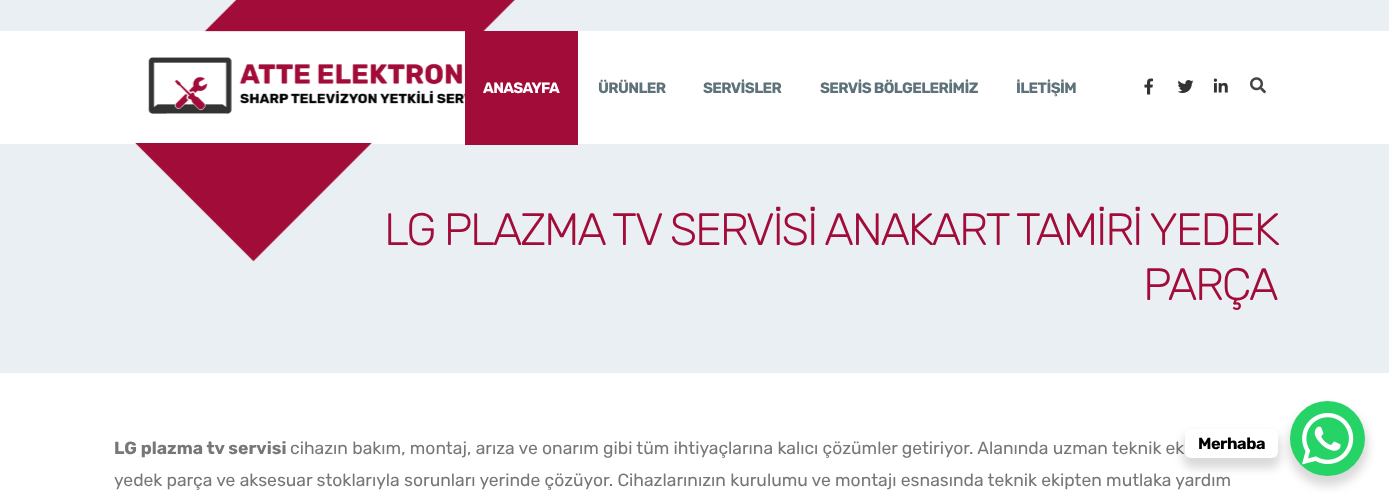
(async () => {
    const canvas = document.querySelector("canvas");
    canvas.width = 1389;
    canvas.height = 501;
    const context = canvas.getContext("2d");
    context.miterLimit = 4;
    context.fontKerning = "normal";
    function write(s, x, y, font, color) {
        context.font = font;
        context.fillStyle = color;
        context.fillText(s, x, y);
    }
    function block(x, y, w, h, color) {
        context.fillStyle = color;
        context.fillRect(x, y, w, h);
    }
    function card(x, y, w, h, r, color) {
        context.fillStyle = color;
        context.beginPath();
        context.roundRect(x, y, w, h, r);
        context.fill();
    }
    async function photo(src, x, y, w, h) {
        const img = new Image();
        img.src = src;
        await img.decode();
        context.drawImage(img, x, y, w, h);
    }

    block(0, 0, 1389, 501, "rgb(255, 255, 255)");
    block(0, 0, 1389, 373, "rgb(234, 239, 243)");
    block(0, 31, 1389, 113, "rgb(255, 255, 255)");
    context.letterSpacing = "-2.25px";
    write("LG PLAZMA TV SERVİSİ ANAKART TAMİRİ YEDEK", 384, 245, "300 45.5px Rubik", "rgb(162, 12, 57)");
    await photo("media/1.png", 135, 0, 380, 262);
    block(465, 31, 113, 114, "rgb(162, 12, 57)");
    context.letterSpacing = "-0.6px";
    write("ANASAYFA", 483, 93, "bold 15px Rubik", "rgb(255, 255, 255)");
    write("ÜRÜNLER", 598, 93, "bold 15px Rubik", "rgb(94, 114, 121)");
    write("SERVİSLER", 703, 93, "bold 15px Rubik", "rgb(94, 114, 121)");
    write("SERVİS BÖLGELERİMİZ", 820, 93, "bold 15px Rubik", "rgb(94, 114, 121)");
    write("İLETİŞİM", 1016, 93, "bold 15px Rubik", "rgb(94, 114, 121)");
    await photo("media/2.png", 1144, 78, 10, 17);
    await photo("media/3.png", 1177, 80, 17, 13);
    await photo("media/4.png", 1213, 78, 15, 15);
    await photo("media/5.png", 1250, 77, 16, 17);
    context.letterSpacing = "-2.25px";
    write("PARÇA", 1143, 300, "300 45.5px Rubik", "rgb(162, 12, 57)");
    context.letterSpacing = "0px";
    write("LG plazma tv servisi", 114, 454, "bold 17.5px Rubik", "rgb(119, 119, 119)");
    write("cihazın bakım, montaj, arıza ve onarım gibi tüm ihtiyaçlarına kalıcı çözümler getiriyor. Alanında uzman teknik ek", 290, 454, "17.5px Rubik", "rgb(119, 119, 119)");
    write("yedek parça ve aksesuar stoklarıyla sorunları yerinde çözüyor. Cihazlarınızın kurulumu ve montajı esnasında teknik ekipten mutlaka yardım", 114, 486, "17.5px Rubik", "rgb(119, 119, 119)");
    context.fillStyle = "rgba(0, 0, 0, 0.15)";
    context.filter = "blur(5px)";
    context.beginPath();
    context.roundRect(1288, 406, 80, 80, 40);
    context.fill();
    context.filter = "none";
    context.fillStyle = "rgb(37, 211, 102)";
    context.beginPath();
    context.arc(1327.5, 438.5, 37.5, 0, Math.PI * 2);
    context.fill();
    context.fillStyle = "rgba(0, 0, 0, 0.15)";
    context.filter = "blur(5px)";
    context.beginPath();
    context.roundRect(1183, 434, 97, 34, 9);
    context.fill();
    context.filter = "none";
    card(1185, 429, 93, 29, 6, "rgb(255, 255, 255)");
    context.letterSpacing = "-0.5px";
    write("Merhaba", 1198, 449, "bold 16.25px Rubik", "rgb(0, 0, 0)");
    await photo("media/6.png", 1302, 412, 52, 53);
})();
